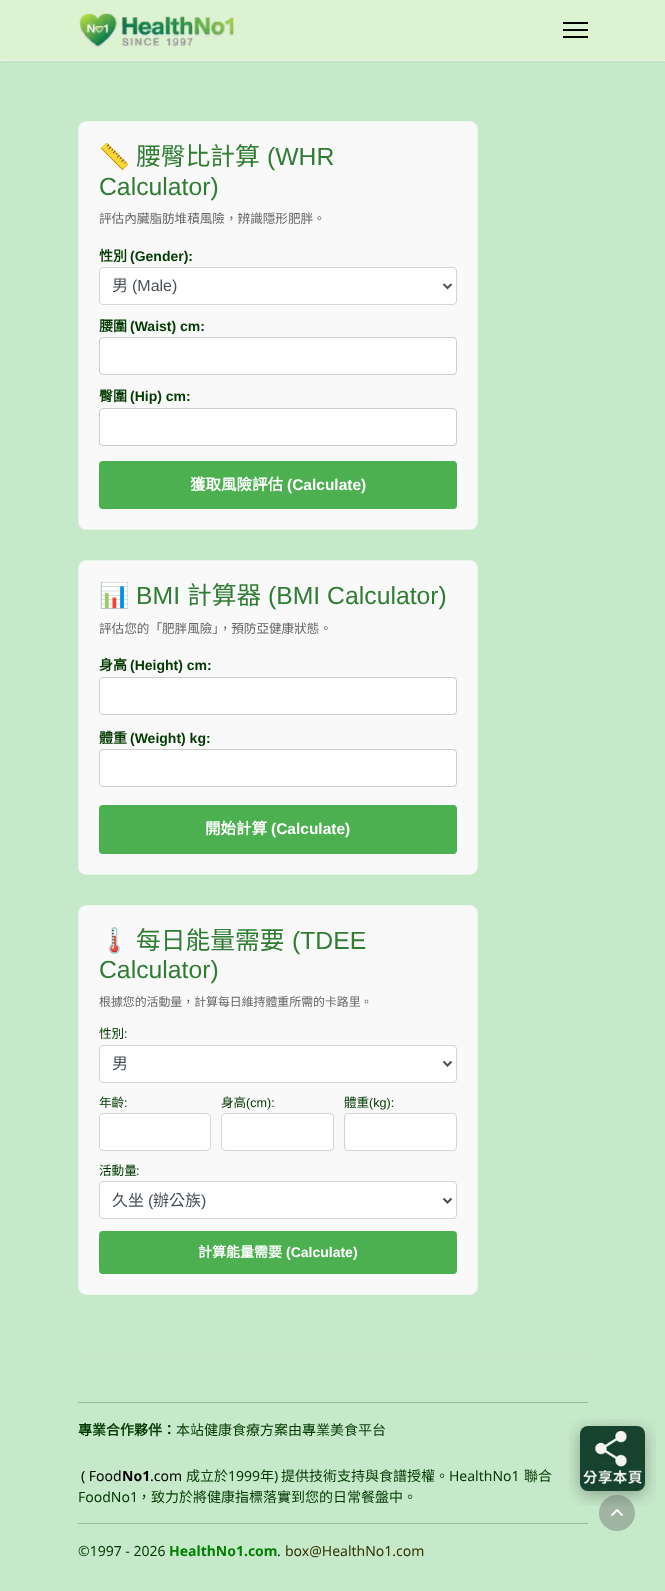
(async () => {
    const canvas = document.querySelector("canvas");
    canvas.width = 665;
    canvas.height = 1591;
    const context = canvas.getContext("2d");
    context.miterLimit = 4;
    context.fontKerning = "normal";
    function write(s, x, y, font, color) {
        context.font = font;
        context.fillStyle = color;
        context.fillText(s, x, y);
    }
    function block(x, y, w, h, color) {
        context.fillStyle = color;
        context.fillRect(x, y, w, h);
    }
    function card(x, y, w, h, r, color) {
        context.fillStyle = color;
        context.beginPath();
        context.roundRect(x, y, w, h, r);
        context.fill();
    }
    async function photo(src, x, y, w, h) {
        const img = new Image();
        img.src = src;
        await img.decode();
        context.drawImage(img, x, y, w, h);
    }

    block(0, 0, 665, 1591, "rgb(247, 252, 244)");
    block(0, 61, 665, 1530, "rgb(198, 233, 202)");
    context.fillStyle = "rgba(0, 0, 0, 0.1)";
    context.filter = "blur(2px)";
    context.beginPath();
    context.rect(0, 0, 665, 60);
    context.fill();
    context.filter = "none";
    block(0, 0, 665, 60, "rgb(220, 242, 208)");
    await photo("media/1.png", 79, 13, 156, 34);
    block(563, 22, 25, 2, "rgb(0, 0, 0)");
    block(563, 29, 25, 2, "rgb(0, 0, 0)");
    block(563, 36, 25, 2, "rgb(0, 0, 0)");
    context.fillStyle = "rgb(249, 249, 249)";
    context.beginPath();
    context.roundRect(78.5, 121.5, 399, 408, 7.5);
    context.fill();
    context.strokeStyle = "rgb(232, 245, 233)";
    context.stroke();
    write("📏", 99, 165, "24.75px Noto Color Emoji", "rgb(46, 125, 50)");
    write("腰臀比計算", 136, 165, "24.75px Noto Sans CJK TC", "rgb(46, 125, 50)");
    write("(WHR", 267, 165, "24.75px Liberation Sans", "rgb(46, 125, 50)");
    write("Calculator)", 99, 195, "24.75px Liberation Sans", "rgb(46, 125, 50)");
    write("評估內臟脂肪堆積風險，辨識隱形肥胖。", 99, 223, "12.6px Noto Sans CJK TC", "rgb(102, 102, 102)");
    write("性別", 99, 261, "bold 14px Noto Sans CJK TC", "rgb(2, 57, 0)");
    write("(Gender):", 130, 261, "bold 14px Liberation Sans", "rgb(2, 57, 0)");
    context.fillStyle = "rgb(255, 255, 255)";
    context.beginPath();
    context.roundRect(99.5, 267.5, 357, 37, 3.5);
    context.fill();
    context.strokeStyle = "rgb(212, 212, 212)";
    context.stroke();
    context.beginPath();
    context.moveTo(443.5, 284);
    context.lineTo(447.5, 288);
    context.lineTo(451.5, 284);
    context.strokeStyle = "rgb(73, 80, 87)";
    context.lineWidth = 2;
    context.stroke();
    write("男", 112, 291, "16px Noto Sans CJK TC", "rgb(73, 80, 87)");
    write("(Male)", 132, 291, "16px Liberation Sans", "rgb(73, 80, 87)");
    write("腰圍", 99, 331, "bold 14px Noto Sans CJK TC", "rgb(2, 57, 0)");
    write("(Waist) cm:", 130, 331, "bold 14px Liberation Sans", "rgb(2, 57, 0)");
    context.fillStyle = "rgb(255, 255, 255)";
    context.beginPath();
    context.roundRect(99.5, 337.5, 357, 37, 3.5);
    context.fill();
    context.strokeStyle = "rgb(204, 204, 204)";
    context.lineWidth = 1;
    context.stroke();
    write("臀圍", 99, 401, "bold 14px Noto Sans CJK TC", "rgb(2, 57, 0)");
    write("(Hip) cm:", 130, 401, "bold 14px Liberation Sans", "rgb(2, 57, 0)");
    context.fillStyle = "rgb(255, 255, 255)";
    context.beginPath();
    context.roundRect(99.5, 408.5, 357, 37, 3.5);
    context.fill();
    context.stroke();
    card(99, 461, 358, 48, 4, "rgb(76, 175, 80)");
    write("獲取風險評估", 190, 490, "bold 15.5px Noto Sans CJK TC", "rgb(255, 255, 255)");
    write("(Calculate)", 287, 490, "bold 15.5px Liberation Sans", "rgb(255, 255, 255)");
    context.fillStyle = "rgb(249, 249, 249)";
    context.beginPath();
    context.roundRect(78.5, 560.5, 399, 314, 7.5);
    context.fill();
    context.strokeStyle = "rgb(232, 245, 233)";
    context.stroke();
    write("📊", 99, 604, "24.75px Noto Color Emoji", "rgb(46, 125, 50)");
    write("BMI", 136, 604, "24.75px Liberation Sans", "rgb(46, 125, 50)");
    write("計算器", 187, 604, "24.75px Noto Sans CJK TC", "rgb(46, 125, 50)");
    write("(BMI Calculator)", 268, 604, "24.75px Liberation Sans", "rgb(46, 125, 50)");
    write("評估您的「肥胖風險」，預防亞健康狀態。", 99, 633, "12.6px Noto Sans CJK TC", "rgb(102, 102, 102)");
    write("身高", 99, 670, "bold 14px Noto Sans CJK TC", "rgb(2, 57, 0)");
    write("(Height) cm:", 130, 670, "bold 14px Liberation Sans", "rgb(2, 57, 0)");
    context.fillStyle = "rgb(255, 255, 255)";
    context.beginPath();
    context.roundRect(99.5, 677.5, 357, 37, 3.5);
    context.fill();
    context.strokeStyle = "rgb(204, 204, 204)";
    context.stroke();
    write("體重", 99, 743, "bold 14px Noto Sans CJK TC", "rgb(2, 57, 0)");
    write("(Weight) kg:", 130, 743, "bold 14px Liberation Sans", "rgb(2, 57, 0)");
    context.fillStyle = "rgb(255, 255, 255)";
    context.beginPath();
    context.roundRect(99.5, 749.5, 357, 37, 3.5);
    context.fill();
    context.stroke();
    card(99, 805, 358, 49, 4, "rgb(76, 175, 80)");
    write("開始計算", 205, 834, "bold 15.5px Noto Sans CJK TC", "rgb(255, 255, 255)");
    write("(Calculate)", 271, 834, "bold 15.5px Liberation Sans", "rgb(255, 255, 255)");
    context.fillStyle = "rgb(249, 249, 249)";
    context.beginPath();
    context.roundRect(78.5, 905.5, 399, 389, 7.5);
    context.fill();
    context.strokeStyle = "rgb(232, 245, 233)";
    context.stroke();
    write("🌡️", 99, 949, "24.75px Noto Color Emoji", "rgb(46, 125, 50)");
    write("每日能量需要", 136, 949, "24.75px Noto Sans CJK TC", "rgb(46, 125, 50)");
    write("(TDEE", 292, 949, "24.75px Liberation Sans", "rgb(46, 125, 50)");
    write("Calculator)", 99, 978, "24.75px Liberation Sans", "rgb(46, 125, 50)");
    write("根據您的活動量，計算每日維持體重所需的卡路里。", 99, 1006, "11.9px Noto Sans CJK TC", "rgb(102, 102, 102)");
    write("性別", 99, 1038, "12.6px Noto Sans CJK TC", "rgb(2, 57, 0)");
    write(":", 124, 1038, "12.6px Liberation Sans", "rgb(2, 57, 0)");
    context.fillStyle = "rgb(255, 255, 255)";
    context.beginPath();
    context.roundRect(99.5, 1045.5, 357, 37, 3.5);
    context.fill();
    context.strokeStyle = "rgb(212, 212, 212)";
    context.stroke();
    context.beginPath();
    context.moveTo(443.5, 1061.5);
    context.lineTo(447.5, 1065.5);
    context.lineTo(451.5, 1061.5);
    context.strokeStyle = "rgb(73, 80, 87)";
    context.lineWidth = 2;
    context.stroke();
    write("男", 112, 1069, "16px Noto Sans CJK TC", "rgb(73, 80, 87)");
    write("年齡", 99, 1107, "12.6px Noto Sans CJK TC", "rgb(2, 57, 0)");
    write(":", 124, 1107, "12.6px Liberation Sans", "rgb(2, 57, 0)");
    context.fillStyle = "rgb(255, 255, 255)";
    context.beginPath();
    context.roundRect(99.5, 1113.5, 111, 37, 3.5);
    context.fill();
    context.strokeStyle = "rgb(212, 212, 212)";
    context.lineWidth = 1;
    context.stroke();
    write("身高", 221, 1107, "12.6px Noto Sans CJK TC", "rgb(2, 57, 0)");
    write("(cm):", 246, 1107, "12.6px Liberation Sans", "rgb(2, 57, 0)");
    context.fillStyle = "rgb(255, 255, 255)";
    context.beginPath();
    context.roundRect(221.5, 1113.5, 112, 37, 3.5);
    context.fill();
    context.stroke();
    write("體重", 344, 1107, "12.6px Noto Sans CJK TC", "rgb(2, 57, 0)");
    write("(kg):", 369, 1107, "12.6px Liberation Sans", "rgb(2, 57, 0)");
    context.fillStyle = "rgb(255, 255, 255)";
    context.beginPath();
    context.roundRect(344.5, 1113.5, 112, 37, 3.5);
    context.fill();
    context.stroke();
    write("活動量", 99, 1175, "12.6px Noto Sans CJK TC", "rgb(2, 57, 0)");
    write(":", 136, 1175, "12.6px Liberation Sans", "rgb(2, 57, 0)");
    context.fillStyle = "rgb(255, 255, 255)";
    context.beginPath();
    context.roundRect(99.5, 1181.5, 357, 37, 3.5);
    context.fill();
    context.stroke();
    context.beginPath();
    context.moveTo(443.5, 1198.5);
    context.lineTo(447.5, 1202.5);
    context.lineTo(451.5, 1198.5);
    context.strokeStyle = "rgb(73, 80, 87)";
    context.lineWidth = 2;
    context.stroke();
    write("久坐", 112, 1206, "16px Noto Sans CJK TC", "rgb(73, 80, 87)");
    write("(", 148, 1206, "16px Liberation Sans", "rgb(73, 80, 87)");
    write("辦公族", 153, 1206, "16px Noto Sans CJK TC", "rgb(73, 80, 87)");
    write(")", 201, 1206, "16px Liberation Sans", "rgb(73, 80, 87)");
    card(99, 1231, 358, 43, 4, "rgb(76, 175, 80)");
    write("計算能量需要", 198, 1257, "bold 14px Noto Sans CJK TC", "rgb(255, 255, 255)");
    write("(Calculate)", 286, 1257, "bold 14px Liberation Sans", "rgb(255, 255, 255)");
    block(78, 1355, 510, 1, "rgb(204, 235, 207)");
    block(78, 1402, 510, 1, "rgb(149, 189, 152)");
    write("專業合作夥伴：", 78, 1435, "bold 14px Noto Sans CJK TC", "rgb(2, 57, 0)");
    write("本站健康食療方案由專業美食平台", 176, 1435, "14px Noto Sans CJK TC", "rgb(2, 57, 0)");
    write("( Food", 81, 1481, "14px Noto Sans", "rgb(0, 0, 0)");
    write("No1", 122, 1481, "bold 14px Noto Sans", "rgb(0, 0, 0)");
    write(".com", 150, 1481, "14px Noto Sans", "rgb(0, 0, 0)");
    write("成立於", 186, 1481, "14px Noto Sans CJK TC", "rgb(2, 57, 0)");
    write("1999", 228, 1481, "14px Noto Sans", "rgb(2, 57, 0)");
    write("年", 260, 1481, "14px Noto Sans CJK TC", "rgb(2, 57, 0)");
    write(")", 274, 1481, "14px Noto Sans", "rgb(2, 57, 0)");
    write("提供技術支持與食譜授權。", 281, 1481, "14px Noto Sans CJK TC", "rgb(2, 57, 0)");
    write("HealthNo1", 449, 1481, "14px Noto Sans", "rgb(2, 57, 0)");
    write("聯合", 524, 1481, "14px Noto Sans CJK TC", "rgb(2, 57, 0)");
    write("FoodNo1", 78, 1502, "14px Noto Sans", "rgb(2, 57, 0)");
    write("，致力於將健康指標落實到您的日常餐盤中。", 137, 1502, "14px Noto Sans CJK TC", "rgb(2, 57, 0)");
    block(78, 1523, 510, 1, "rgb(149, 189, 152)");
    write("©1997 - 2026", 78, 1556, "14px Noto Sans", "rgb(2, 57, 0)");
    write("HealthNo1.com", 169, 1556, "bold 14px Noto Sans", "rgb(0, 128, 0)");
    write(".", 277, 1556, "14px Noto Sans", "rgb(2, 57, 0)");
    write("box@HealthNo1.com", 285, 1556, "14px Noto Sans", "rgb(51, 51, 0)");
    await photo("media/2.png", 569, 1419, 87, 87);
    context.fillStyle = "rgba(100, 100, 100, 0.4)";
    context.beginPath();
    context.arc(617, 1513, 18, 0, Math.PI * 2);
    context.fill();
    await photo("media/3.png", 611, 1509, 12, 7);
})();
